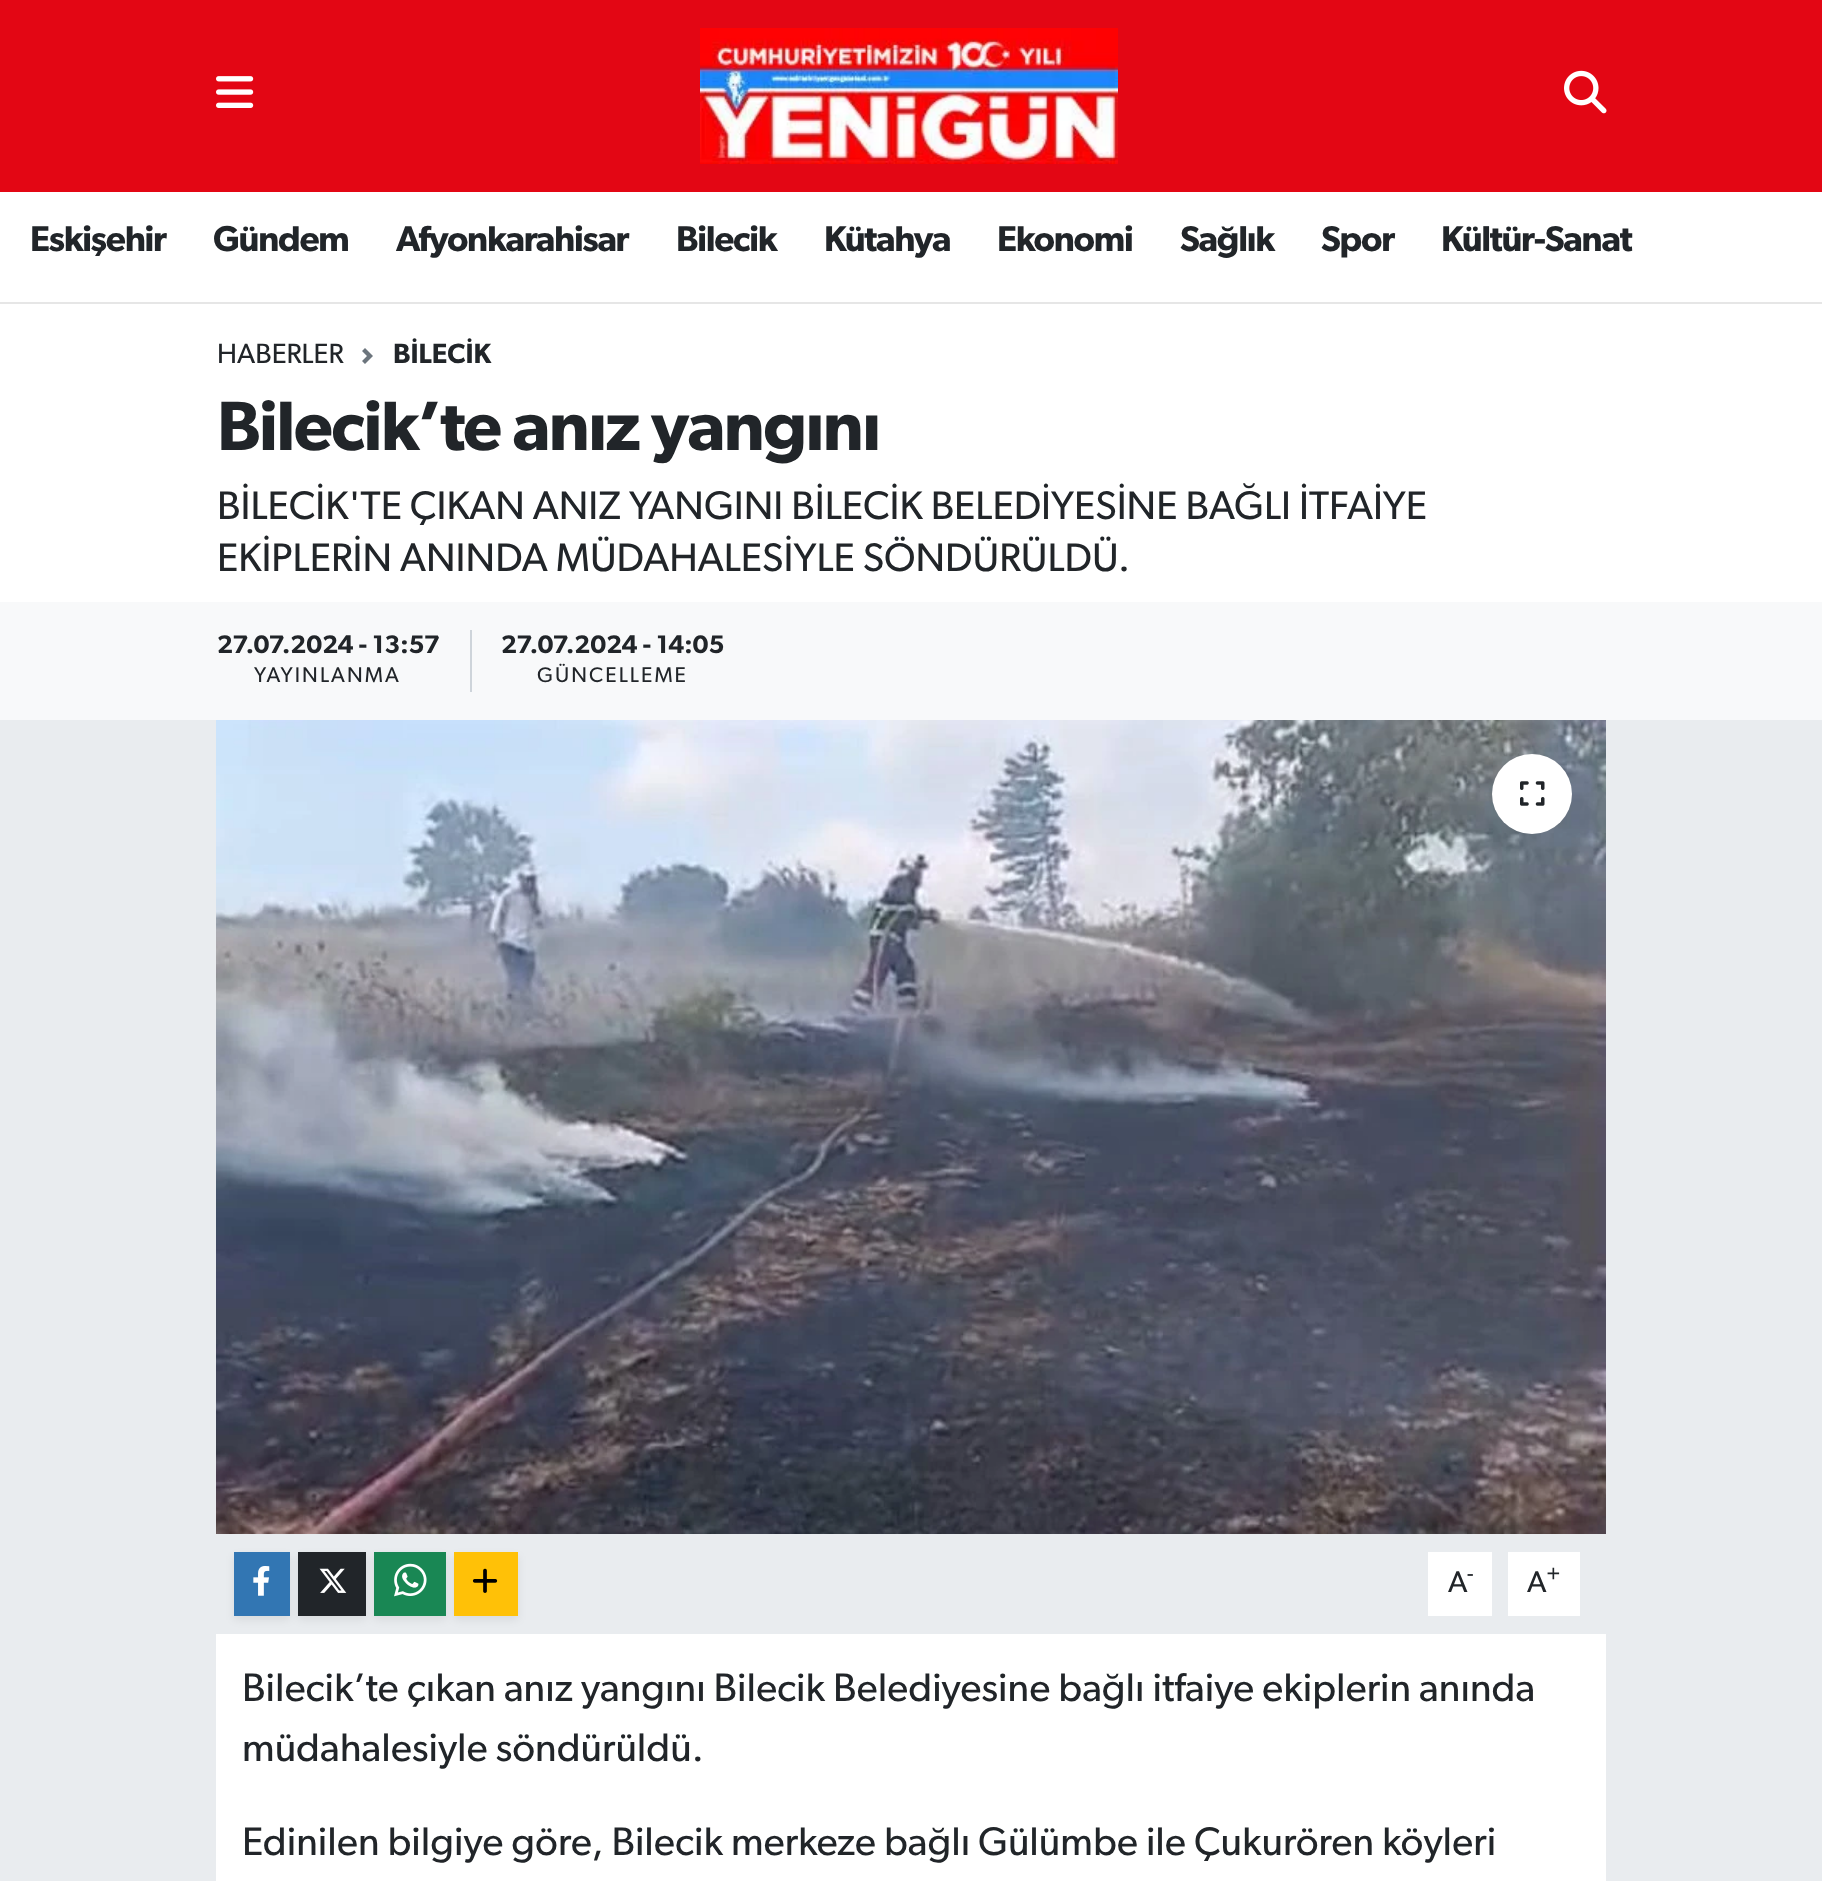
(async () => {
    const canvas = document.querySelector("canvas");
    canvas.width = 1822;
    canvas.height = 1881;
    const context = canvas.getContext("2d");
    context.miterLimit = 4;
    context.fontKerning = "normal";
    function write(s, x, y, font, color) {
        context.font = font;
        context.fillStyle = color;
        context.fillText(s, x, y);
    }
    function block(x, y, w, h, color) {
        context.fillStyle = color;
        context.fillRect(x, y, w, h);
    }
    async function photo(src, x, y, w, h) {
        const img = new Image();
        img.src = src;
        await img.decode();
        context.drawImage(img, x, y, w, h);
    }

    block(0, 0, 1822, 1881, "rgb(233, 236, 239)");
    block(0, 0, 1822, 192, "rgb(227, 6, 20)");
    await photo("media/1.png", 216, 76, 38, 32);
    await photo("media/2.png", 700, 28, 418, 136);
    await photo("media/3.png", 1564, 70, 43, 44);
    block(0, 192, 1822, 110, "rgb(255, 255, 255)");
    block(0, 302, 1822, 2, "rgb(230, 230, 230)");
    context.letterSpacing = "-1.25px";
    write("Eskişehir", 30, 251, "600 36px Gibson", "rgb(33, 37, 41)");
    write("Gündem", 213, 251, "600 36px Gibson", "rgb(33, 37, 41)");
    write("Afyonkarahisar", 396, 251, "600 36px Gibson", "rgb(33, 37, 41)");
    write("Bilecik", 676, 251, "600 36px Gibson", "rgb(33, 37, 41)");
    write("Kütahya", 824, 251, "600 36px Gibson", "rgb(33, 37, 41)");
    write("Ekonomi", 997, 251, "600 36px Gibson", "rgb(33, 37, 41)");
    write("Sağlık", 1180, 251, "600 36px Gibson", "rgb(33, 37, 41)");
    write("Spor", 1321, 251, "600 36px Gibson", "rgb(33, 37, 41)");
    write("Kültür-Sanat", 1441, 251, "600 36px Gibson", "rgb(33, 37, 41)");
    block(0, 304, 1822, 298, "rgb(255, 255, 255)");
    context.letterSpacing = "0px";
    write("HABERLER", 217, 363, "28px Gibson", "rgb(33, 37, 41)");
    await photo("media/4.png", 362, 348, 11, 16);
    write("BİLECİK", 393, 363, "600 28px Gibson", "rgb(33, 37, 41)");
    context.letterSpacing = "-1.6px";
    write("Bilecik’te anız yangını", 217, 450, "600 70px Gibson", "rgb(33, 37, 41)");
    context.letterSpacing = "0px";
    write("BİLECİK'TE ÇIKAN ANIZ YANGINI BİLECİK BELEDİYESİNE BAĞLI İTFAİYE", 217, 519, "40px Gibson", "rgb(33, 37, 41)");
    write("EKİPLERİN ANINDA MÜDAHALESİYLE SÖNDÜRÜLDÜ.", 217, 571, "40px Gibson", "rgb(33, 37, 41)");
    block(0, 602, 1822, 118, "rgb(248, 249, 250)");
    block(470, 630, 2, 62, "rgb(206, 212, 218)");
    write("27.07.2024 - 13:57", 217, 653, "600 25.5px Gibson", "rgb(33, 37, 41)");
    context.letterSpacing = "2.1px";
    write("YAYINLANMA", 254, 682, "21.25px Gibson", "rgb(33, 37, 41)");
    context.letterSpacing = "0px";
    write("27.07.2024 - 14:05", 501, 653, "600 25.5px Gibson", "rgb(33, 37, 41)");
    context.letterSpacing = "2.1px";
    write("GÜNCELLEME", 537, 682, "21.25px Gibson", "rgb(33, 37, 41)");
    await photo("media/5.png", 216, 720, 1390, 814);
    context.fillStyle = "rgb(255, 255, 255)";
    context.beginPath();
    context.arc(1532, 794, 40, 0, Math.PI * 2);
    context.fill();
    await photo("media/6.png", 1520, 781, 25, 25);
    context.fillStyle = "rgba(0, 0, 0, 0.07)";
    context.filter = "blur(4px)";
    context.beginPath();
    context.rect(234, 1556, 56, 64);
    context.fill();
    context.filter = "none";
    block(234, 1552, 56, 64, "rgb(50, 118, 179)");
    await photo("media/7.png", 253, 1566, 17, 30);
    context.fillStyle = "rgba(0, 0, 0, 0.07)";
    context.filter = "blur(4px)";
    context.beginPath();
    context.rect(298, 1556, 68, 64);
    context.fill();
    context.filter = "none";
    block(298, 1552, 68, 64, "rgb(33, 37, 41)");
    await photo("media/8.png", 319, 1568, 28, 25);
    context.fillStyle = "rgba(0, 0, 0, 0.07)";
    context.filter = "blur(4px)";
    context.beginPath();
    context.rect(374, 1556, 72, 64);
    context.fill();
    context.filter = "none";
    block(374, 1552, 72, 64, "rgb(25, 135, 84)");
    await photo("media/9.png", 394, 1563, 33, 34);
    context.fillStyle = "rgba(0, 0, 0, 0.07)";
    context.filter = "blur(4px)";
    context.beginPath();
    context.rect(454, 1556, 64, 64);
    context.fill();
    context.filter = "none";
    block(454, 1552, 64, 64, "rgb(255, 193, 7)");
    await photo("media/10.png", 472, 1568, 26, 25);
    block(1428, 1552, 64, 64, "rgb(255, 255, 255)");
    context.letterSpacing = "0px";
    write("A", 1448, 1592, "30px Gibson", "rgb(33, 37, 41)");
    write("-", 1467, 1581, "22px Gibson", "rgb(33, 37, 41)");
    block(1508, 1552, 72, 64, "rgb(255, 255, 255)");
    write("A", 1527, 1592, "30px Gibson", "rgb(33, 37, 41)");
    write("+", 1546, 1581, "22px Gibson", "rgb(33, 37, 41)");
    block(216, 1634, 1390, 247, "rgb(255, 255, 255)");
    write("Bilecik’te çıkan anız yangını Bilecik Belediyesine bağlı itfaiye ekiplerin anında", 242, 1701, "40px Gibson", "rgb(33, 37, 41)");
    write("müdahalesiyle söndürüldü.", 242, 1761, "40px Gibson", "rgb(33, 37, 41)");
    write("Edinilen bilgiye göre, Bilecik merkeze bağlı Gülümbe ile Çukurören köyleri", 242, 1855, "40px Gibson", "rgb(33, 37, 41)");
})();
